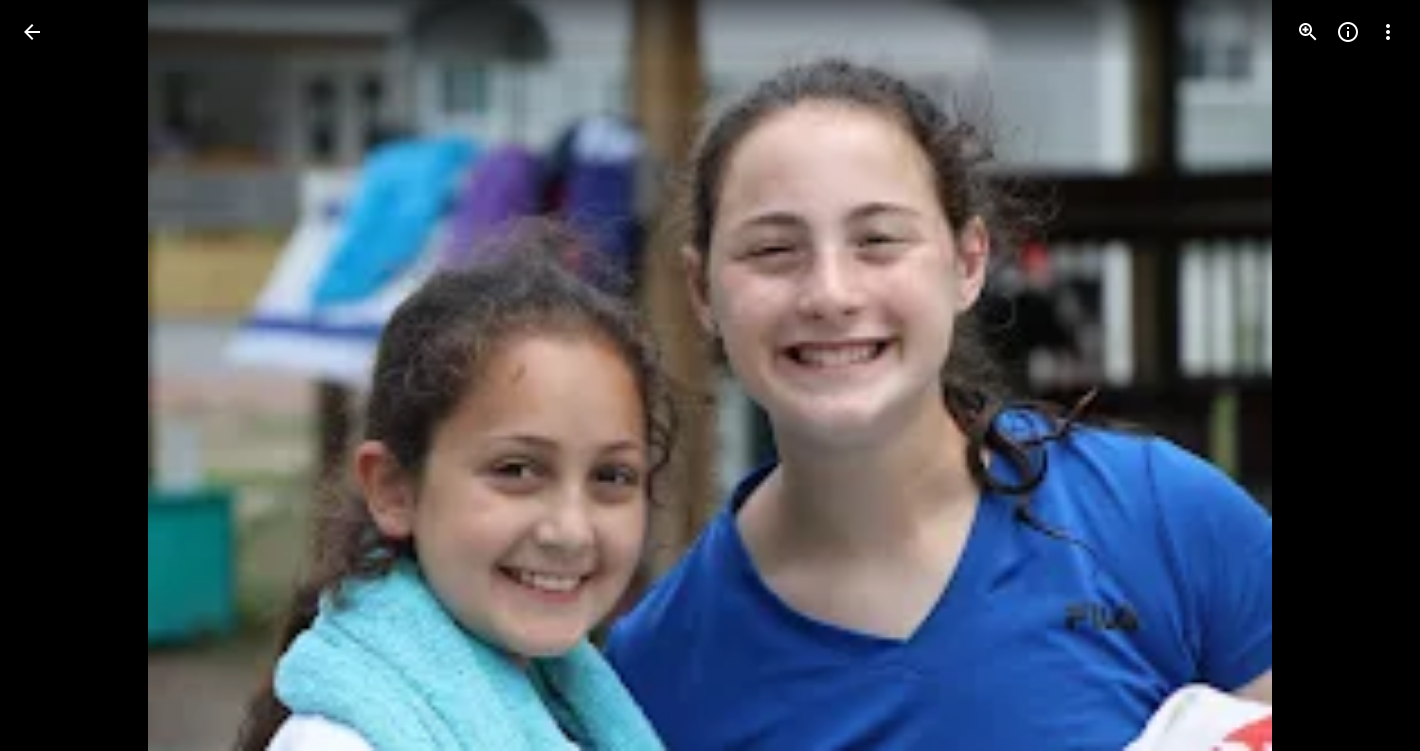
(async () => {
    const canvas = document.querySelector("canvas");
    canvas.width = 1420;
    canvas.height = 751;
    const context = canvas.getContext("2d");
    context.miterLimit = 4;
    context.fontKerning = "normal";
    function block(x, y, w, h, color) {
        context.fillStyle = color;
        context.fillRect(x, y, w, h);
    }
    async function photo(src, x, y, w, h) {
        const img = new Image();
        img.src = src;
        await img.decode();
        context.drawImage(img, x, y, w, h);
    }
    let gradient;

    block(0, 0, 1420, 751, "rgb(0, 0, 0)");
    await photo("media/5.png", 148, 0, 1124, 751);
    gradient = context.createLinearGradient(710, 0, 710, 64);
    gradient.addColorStop(0, "rgba(0, 0, 0, 0.6)");
    gradient.addColorStop(1, "rgba(0, 0, 0, 0)");
    context.fillStyle = gradient;
    context.fillRect(148, 0, 1124, 62);
    await photo("media/1.png", 24, 24, 16, 16);
    await photo("media/2.png", 1299, 23, 18, 18);
    await photo("media/3.png", 1338, 22, 20, 20);
    await photo("media/4.png", 1386, 24, 4, 16);
})();
